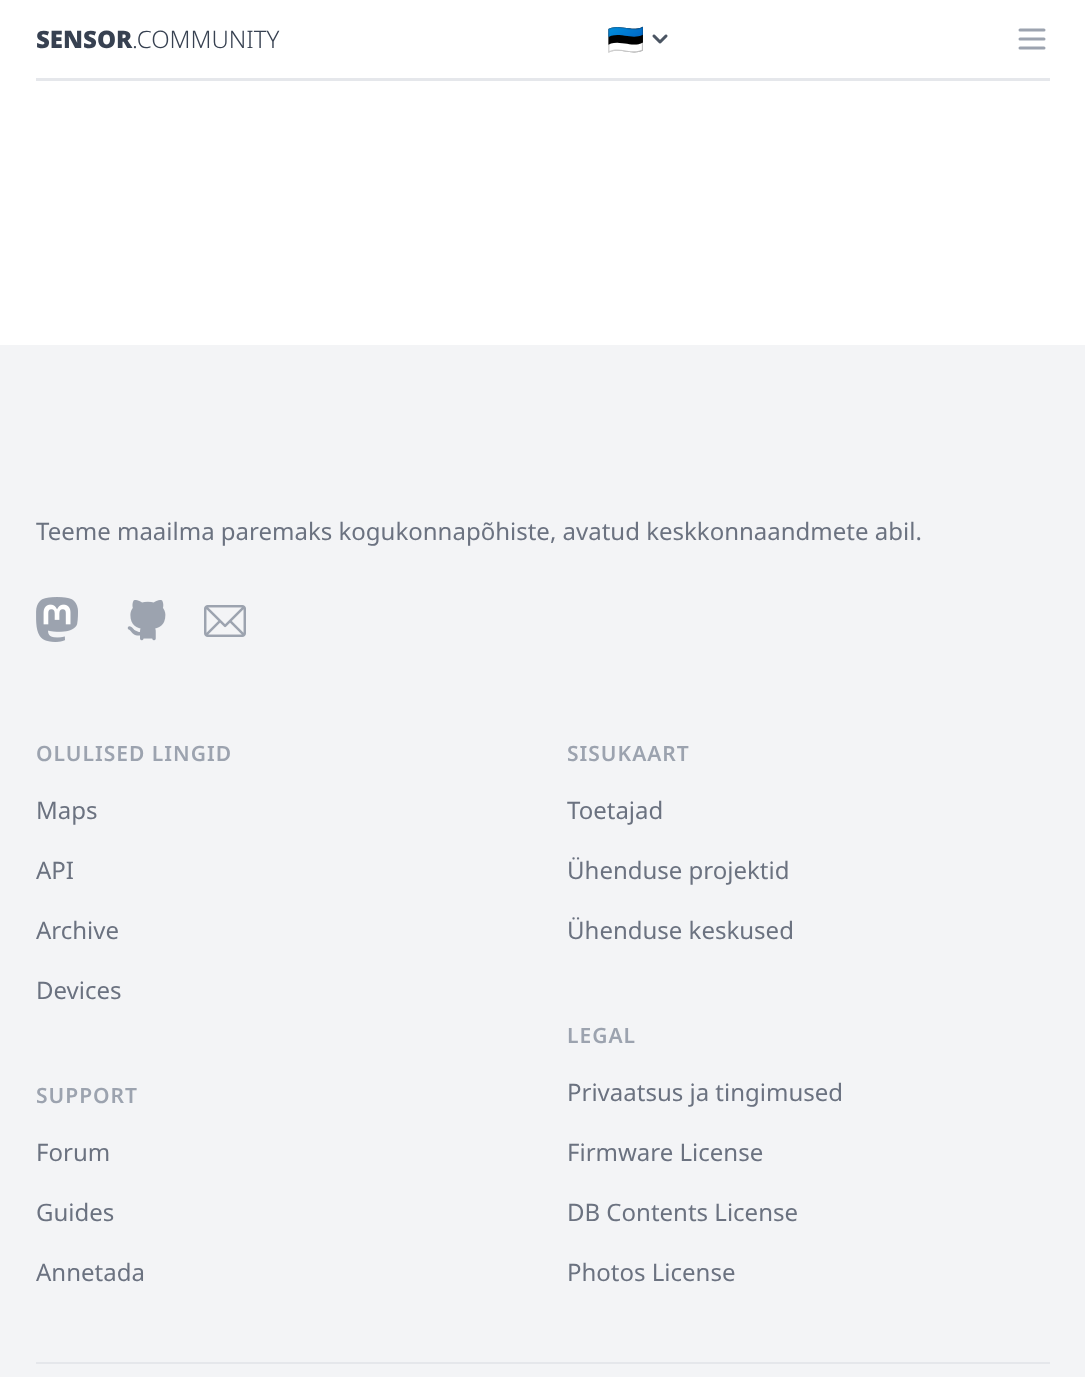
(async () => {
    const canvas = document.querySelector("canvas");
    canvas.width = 1085;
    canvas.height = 1377;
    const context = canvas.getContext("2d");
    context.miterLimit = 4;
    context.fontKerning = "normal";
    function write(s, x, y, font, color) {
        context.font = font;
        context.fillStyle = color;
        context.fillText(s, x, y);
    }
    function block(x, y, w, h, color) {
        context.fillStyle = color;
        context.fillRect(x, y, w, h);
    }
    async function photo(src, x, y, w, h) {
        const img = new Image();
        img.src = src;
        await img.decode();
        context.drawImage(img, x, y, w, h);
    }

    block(0, 0, 1085, 1377, "rgb(255, 255, 255)");
    block(36, 78, 1014, 3, "rgb(229, 231, 235)");
    write("SENSOR", 36, 48, "900 24px Noto Sans", "rgb(55, 65, 81)");
    write(".COMMUNITY", 132, 48, "300 24px Noto Sans", "rgb(55, 65, 81)");
    write("🇪🇪", 607, 50, "bold 30px Noto Color Emoji", "rgb(107, 114, 128)");
    await photo("media/1.png", 652, 34, 16, 10);
    context.beginPath();
    context.moveTo(1020, 30);
    context.lineTo(1044, 30);
    context.moveTo(1020, 39);
    context.lineTo(1044, 39);
    context.moveTo(1020, 48);
    context.lineTo(1044, 48);
    context.strokeStyle = "rgb(156, 163, 175)";
    context.lineWidth = 3;
    context.lineCap = "round";
    context.lineJoin = "round";
    context.stroke();
    block(0, 345, 1085, 1032, "rgb(243, 244, 246)");
    write("Teeme maailma paremaks kogukonnapõhiste, avatud keskkonnaandmete abil.", 36, 540, "24px Noto Sans", "rgb(107, 114, 128)");
    await photo("media/2.png", 36, 597, 42, 45);
    await photo("media/3.png", 127, 600, 39, 41);
    await photo("media/4.png", 204, 605, 42, 32);
    context.letterSpacing = "1px";
    write("OLULISED LINGID", 36, 761, "600 21px Noto Sans", "rgb(156, 163, 175)");
    context.letterSpacing = "0px";
    write("Maps", 36, 819, "24px Noto Sans", "rgb(107, 114, 128)");
    write("API", 36, 879, "24px Noto Sans", "rgb(107, 114, 128)");
    write("Archive", 36, 939, "24px Noto Sans", "rgb(107, 114, 128)");
    write("Devices", 36, 999, "24px Noto Sans", "rgb(107, 114, 128)");
    context.letterSpacing = "1px";
    write("SUPPORT", 36, 1103, "600 21px Noto Sans", "rgb(156, 163, 175)");
    context.letterSpacing = "0px";
    write("Forum", 36, 1161, "24px Noto Sans", "rgb(107, 114, 128)");
    write("Guides", 36, 1221, "24px Noto Sans", "rgb(107, 114, 128)");
    write("Annetada", 36, 1281, "24px Noto Sans", "rgb(107, 114, 128)");
    context.letterSpacing = "1px";
    write("SISUKAART", 567, 761, "600 21px Noto Sans", "rgb(156, 163, 175)");
    context.letterSpacing = "0px";
    write("Toetajad", 567, 819, "24px Noto Sans", "rgb(107, 114, 128)");
    write("Ühenduse projektid", 567, 879, "24px Noto Sans", "rgb(107, 114, 128)");
    write("Ühenduse keskused", 567, 939, "24px Noto Sans", "rgb(107, 114, 128)");
    context.letterSpacing = "1px";
    write("LEGAL", 567, 1043, "600 21px Noto Sans", "rgb(156, 163, 175)");
    context.letterSpacing = "0px";
    write("Privaatsus ja tingimused", 567, 1101, "24px Noto Sans", "rgb(107, 114, 128)");
    write("Firmware License", 567, 1161, "24px Noto Sans", "rgb(107, 114, 128)");
    write("DB Contents License", 567, 1221, "24px Noto Sans", "rgb(107, 114, 128)");
    write("Photos License", 567, 1281, "24px Noto Sans", "rgb(107, 114, 128)");
    block(36, 1362, 1014, 2, "rgb(229, 231, 235)");
})();
